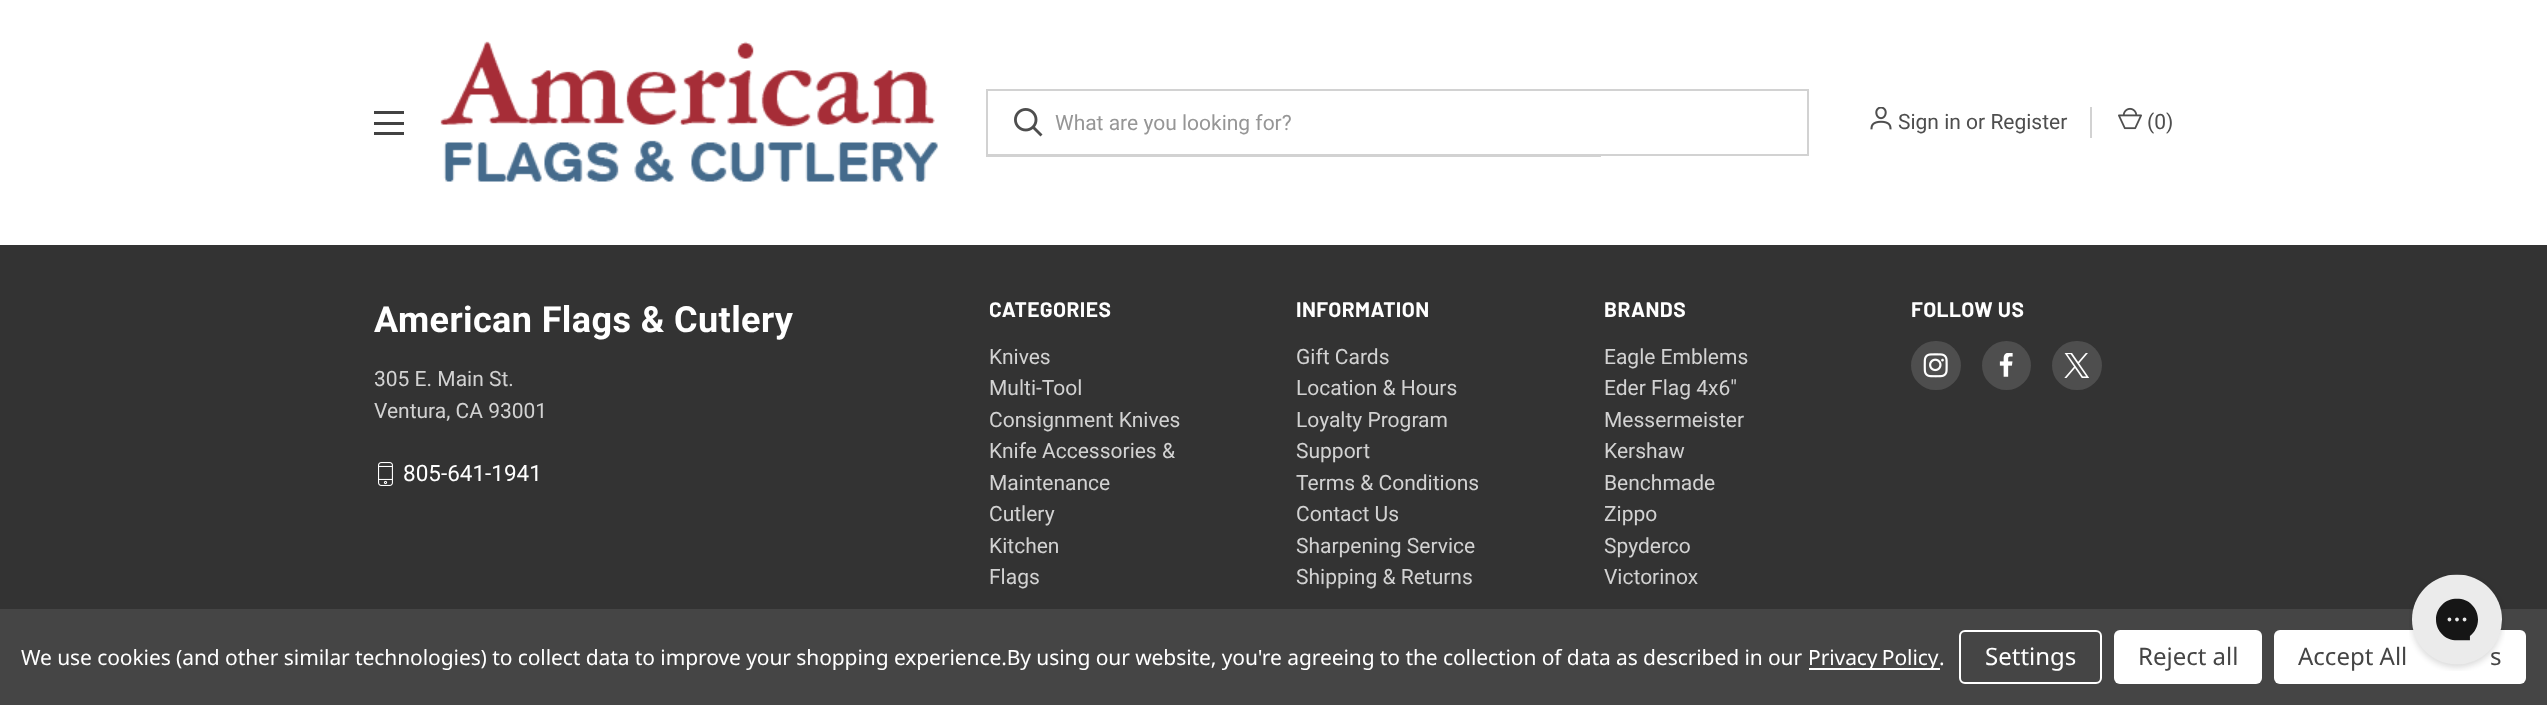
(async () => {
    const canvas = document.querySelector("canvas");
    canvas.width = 2547;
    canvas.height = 705;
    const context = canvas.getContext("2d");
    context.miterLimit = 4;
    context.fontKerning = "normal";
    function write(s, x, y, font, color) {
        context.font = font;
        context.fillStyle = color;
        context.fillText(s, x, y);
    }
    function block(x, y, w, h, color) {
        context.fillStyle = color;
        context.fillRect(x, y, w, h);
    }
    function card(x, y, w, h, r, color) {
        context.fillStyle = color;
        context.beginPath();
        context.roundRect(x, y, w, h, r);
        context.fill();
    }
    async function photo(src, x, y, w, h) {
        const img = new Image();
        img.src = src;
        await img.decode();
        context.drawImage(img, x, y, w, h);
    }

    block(0, 0, 2547, 705, "rgb(51, 51, 51)");
    block(0, 0, 2547, 245, "rgb(255, 255, 255)");
    block(374, 122, 30, 3, "rgb(66, 66, 66)");
    block(374, 111, 30, 3, "rgb(66, 66, 66)");
    block(374, 132, 30, 3, "rgb(66, 66, 66)");
    await photo("media/1.png", 440, 41, 498, 141);
    context.strokeStyle = "rgb(210, 210, 210)";
    context.lineWidth = 2;
    context.strokeRect(987, 90, 821, 65);
    await photo("media/2.png", 1014, 108, 29, 29);
    write("What are you looking for?", 1055, 130, "21px Roboto", "rgb(150, 150, 150)");
    block(986, 156, 615, 1, "rgb(210, 210, 210)");
    await photo("media/3.png", 1870, 107, 22, 23);
    write("Sign in or Register", 1898, 129, "21px Roboto", "rgb(78, 78, 78)");
    block(2090, 107, 2, 31, "rgb(210, 210, 210)");
    await photo("media/4.png", 2118, 107, 24, 23);
    write("(0)", 2147, 129, "21px Roboto", "rgb(78, 78, 78)");
    context.letterSpacing = "0.4px";
    write("American Flags & Cutlery", 374, 332, "bold 36px Roboto", "rgb(255, 255, 255)");
    context.letterSpacing = "0px";
    write("305 E. Main St.", 374, 386, "21px Roboto", "rgb(210, 210, 210)");
    write("Ventura, CA 93001", 374, 418, "21px Roboto", "rgb(210, 210, 210)");
    await photo("media/5.png", 378, 462, 15, 24);
    write("805-641-1941", 403, 481, "22.5px Roboto", "rgb(255, 255, 255)");
    context.letterSpacing = "0.4px";
    write("CATEGORIES", 989, 317, "bold 21px Barlow", "rgb(255, 255, 255)");
    context.letterSpacing = "0px";
    write("Knives", 989, 364, "21px Roboto", "rgb(210, 210, 210)");
    write("Multi-Tool", 989, 395, "21px Roboto", "rgb(210, 210, 210)");
    write("Consignment Knives", 989, 427, "21px Roboto", "rgb(210, 210, 210)");
    write("Knife Accessories &", 989, 458, "21px Roboto", "rgb(210, 210, 210)");
    write("Maintenance", 989, 490, "21px Roboto", "rgb(210, 210, 210)");
    write("Cutlery", 989, 521, "21px Roboto", "rgb(210, 210, 210)");
    write("Kitchen", 989, 553, "21px Roboto", "rgb(210, 210, 210)");
    write("Flags", 989, 584, "21px Roboto", "rgb(210, 210, 210)");
    context.letterSpacing = "0.4px";
    write("INFORMATION", 1296, 317, "bold 21px Barlow", "rgb(255, 255, 255)");
    context.letterSpacing = "0px";
    write("Gift Cards", 1296, 364, "21px Roboto", "rgb(210, 210, 210)");
    write("Location & Hours", 1296, 395, "21px Roboto", "rgb(210, 210, 210)");
    write("Loyalty Program", 1296, 427, "21px Roboto", "rgb(210, 210, 210)");
    write("Support", 1296, 458, "21px Roboto", "rgb(210, 210, 210)");
    write("Terms & Conditions", 1296, 490, "21px Roboto", "rgb(210, 210, 210)");
    write("Contact Us", 1296, 521, "21px Roboto", "rgb(210, 210, 210)");
    write("Sharpening Service", 1296, 553, "21px Roboto", "rgb(210, 210, 210)");
    write("Shipping & Returns", 1296, 584, "21px Roboto", "rgb(210, 210, 210)");
    context.letterSpacing = "0.4px";
    write("BRANDS", 1604, 317, "bold 21px Barlow", "rgb(255, 255, 255)");
    context.letterSpacing = "0px";
    write("Eagle Emblems", 1604, 364, "21px Roboto", "rgb(210, 210, 210)");
    write("Eder Flag 4x6\"", 1604, 395, "21px Roboto", "rgb(210, 210, 210)");
    write("Messermeister", 1604, 427, "21px Roboto", "rgb(210, 210, 210)");
    write("Kershaw", 1604, 458, "21px Roboto", "rgb(210, 210, 210)");
    write("Benchmade", 1604, 490, "21px Roboto", "rgb(210, 210, 210)");
    write("Zippo", 1604, 521, "21px Roboto", "rgb(210, 210, 210)");
    write("Spyderco", 1604, 553, "21px Roboto", "rgb(210, 210, 210)");
    write("Victorinox", 1604, 584, "21px Roboto", "rgb(210, 210, 210)");
    context.letterSpacing = "0.4px";
    write("FOLLOW US", 1911, 317, "bold 21px Barlow", "rgb(255, 255, 255)");
    card(1911, 341, 50, 49, 24.5, "rgb(78, 78, 78)");
    await photo("media/6.png", 1923, 353, 25, 25);
    context.beginPath();
    context.arc(2006.5, 365.5, 24.5, 0, Math.PI * 2);
    context.fill();
    await photo("media/7.png", 1999, 353, 14, 24);
    card(2052, 341, 50, 49, 24.5, "rgb(78, 78, 78)");
    await photo("media/8.png", 2064, 353, 26, 25);
    block(0, 609, 2547, 96, "rgb(69, 69, 69)");
    card(2274, 630, 252, 54, 6, "rgb(255, 255, 255)");
    context.letterSpacing = "0px";
    write("s", 2490, 665, "24px Noto Sans", "rgb(69, 69, 69)");
    await photo("media/9.png", 2409, 574, 96, 97);
    context.letterSpacing = "-0.08px";
    write("We use cookies (and other similar technologies) to collect data to improve your shopping experience.By using our website, you're agreeing to the collection of data as described in our", 21, 665, "21px Noto Sans", "rgb(255, 255, 255)");
    block(1809, 668, 131, 2, "rgb(255, 255, 255)");
    context.wordSpacing = "-1px";
    write("Privacy Policy", 1808, 665, "21px Noto Sans", "rgb(255, 255, 255)");
    context.wordSpacing = "0px";
    write(".", 1939, 665, "21px Noto Sans", "rgb(255, 255, 255)");
    context.beginPath();
    context.roundRect(1960, 631, 141, 52, 5);
    context.strokeStyle = "rgb(255, 255, 255)";
    context.stroke();
    context.letterSpacing = "0px";
    write("Settings", 1985, 665, "24px Noto Sans", "rgb(255, 255, 255)");
    card(2114, 630, 148, 54, 6, "rgb(255, 255, 255)");
    write("Reject all", 2138, 665, "24px Noto Sans", "rgb(69, 69, 69)");
    write("Accept All", 2298, 665, "24px Noto Sans", "rgb(69, 69, 69)");
})();
